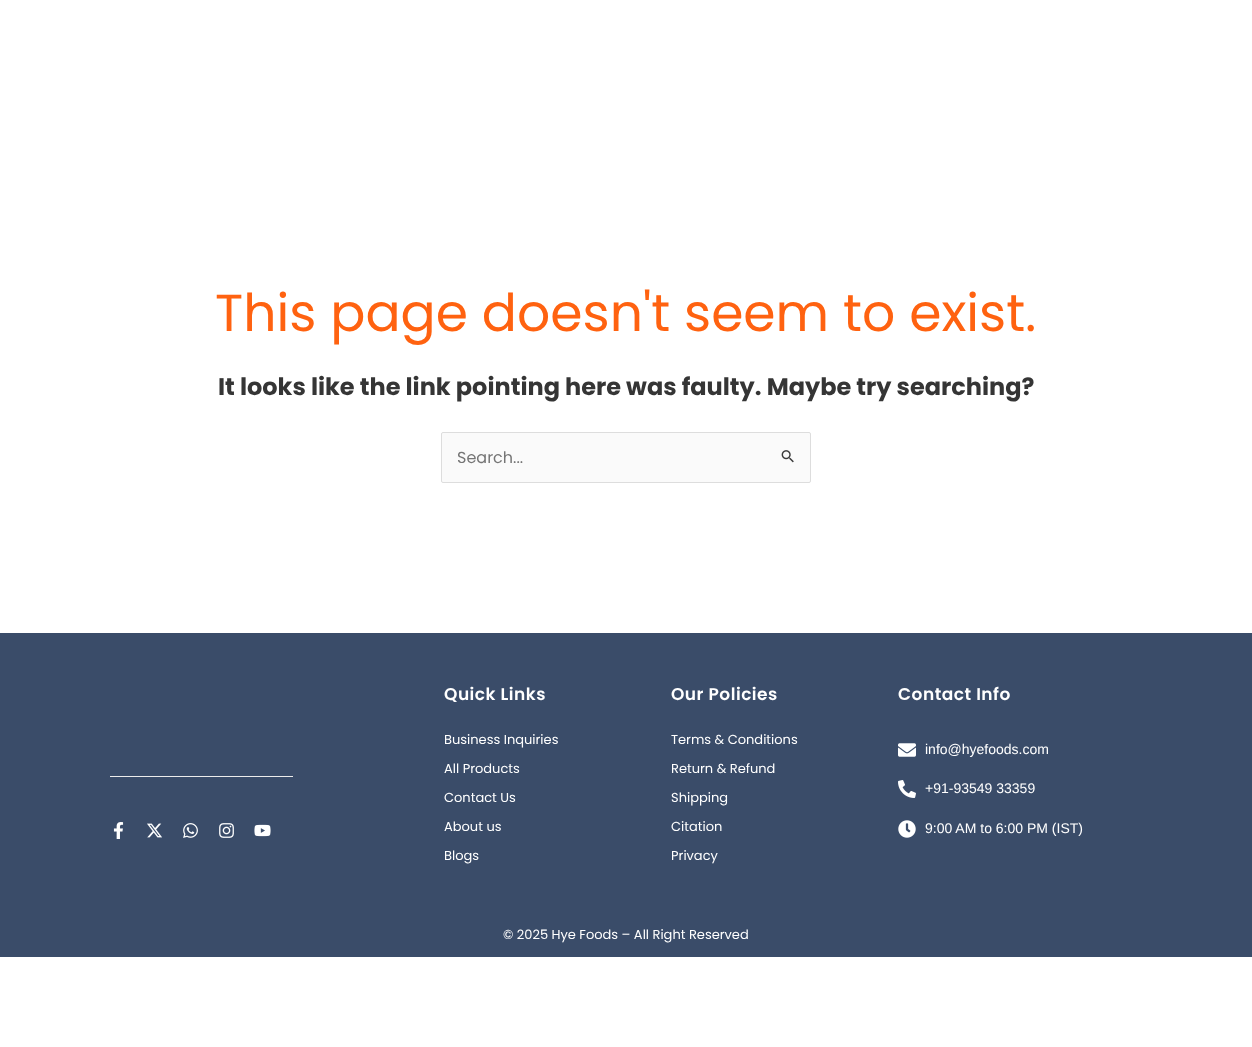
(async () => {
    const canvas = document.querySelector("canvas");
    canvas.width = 1252;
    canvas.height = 1047;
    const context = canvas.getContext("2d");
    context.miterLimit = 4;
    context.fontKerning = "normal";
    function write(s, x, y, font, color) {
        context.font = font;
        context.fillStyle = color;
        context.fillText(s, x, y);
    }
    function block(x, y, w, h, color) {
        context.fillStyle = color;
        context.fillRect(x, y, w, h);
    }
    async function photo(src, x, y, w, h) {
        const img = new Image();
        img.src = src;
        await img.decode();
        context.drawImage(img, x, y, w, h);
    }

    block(0, 0, 1252, 1047, "rgb(255, 255, 255)");
    write("This page doesn't seem to exist.", 215, 331, "52px Poppins", "rgb(255, 98, 16)");
    write("It looks like the link pointing here was faulty. Maybe try searching?", 218, 395, "bold 24px Poppins", "rgb(53, 53, 53)");
    context.fillStyle = "rgb(250, 250, 250)";
    context.beginPath();
    context.roundRect(441.5, 432.5, 369, 50, 1.5);
    context.fill();
    context.strokeStyle = "rgb(221, 221, 221)";
    context.stroke();
    write("Search...", 457, 463, "16px Poppins", "rgb(117, 117, 117)");
    await photo("media/1.png", 781, 450, 13, 13);
    block(0, 633, 1252, 324, "rgb(58, 76, 105)");
    block(110, 776, 183, 1, "rgb(236, 236, 236)");
    await photo("media/2.png", 113, 822, 11, 17);
    await photo("media/3.png", 147, 823, 15, 15);
    await photo("media/4.png", 183, 823, 15, 15);
    await photo("media/5.png", 219, 823, 15, 15);
    await photo("media/6.png", 254, 824, 17, 13);
    context.letterSpacing = "0.5px";
    write("Quick Links", 444, 700, "600 17px Poppins", "rgb(255, 255, 255)");
    context.letterSpacing = "0px";
    write("Business Inquiries", 444, 744, "13px Poppins", "rgb(255, 255, 255)");
    write("All Products", 444, 773, "13px Poppins", "rgb(255, 255, 255)");
    write("Contact Us", 444, 802, "13px Poppins", "rgb(255, 255, 255)");
    write("About us", 444, 831, "13px Poppins", "rgb(255, 255, 255)");
    write("Blogs", 444, 860, "13px Poppins", "rgb(255, 255, 255)");
    context.letterSpacing = "0.5px";
    write("Our Policies", 671, 700, "600 17px Poppins", "rgb(255, 255, 255)");
    context.letterSpacing = "0px";
    write("Terms & Conditions", 671, 744, "13px Poppins", "rgb(255, 255, 255)");
    write("Return & Refund", 671, 773, "13px Poppins", "rgb(255, 255, 255)");
    write("Shipping", 671, 802, "13px Poppins", "rgb(255, 255, 255)");
    write("Citation", 671, 831, "13px Poppins", "rgb(255, 255, 255)");
    write("Privacy", 671, 860, "13px Poppins", "rgb(255, 255, 255)");
    context.letterSpacing = "0.5px";
    write("Contact Info", 898, 700, "600 17px Poppins", "rgb(255, 255, 255)");
    await photo("media/7.png", 898, 743, 18, 14);
    context.letterSpacing = "0px";
    write("info@hyefoods.com", 925, 754, "14px Liberation Sans", "rgb(255, 255, 255)");
    await photo("media/8.png", 898, 780, 18, 18);
    write("+91-93549 33359", 925, 793, "14px Liberation Sans", "rgb(255, 255, 255)");
    await photo("media/9.png", 898, 820, 18, 18);
    write("9:00 AM to 6:00 PM (IST)", 925, 833, "14px Liberation Sans", "rgb(255, 255, 255)");
    write("© 2025 Hye Foods – All Right Reserved", 503, 939, "13px Poppins", "rgb(255, 255, 255)");
})();
